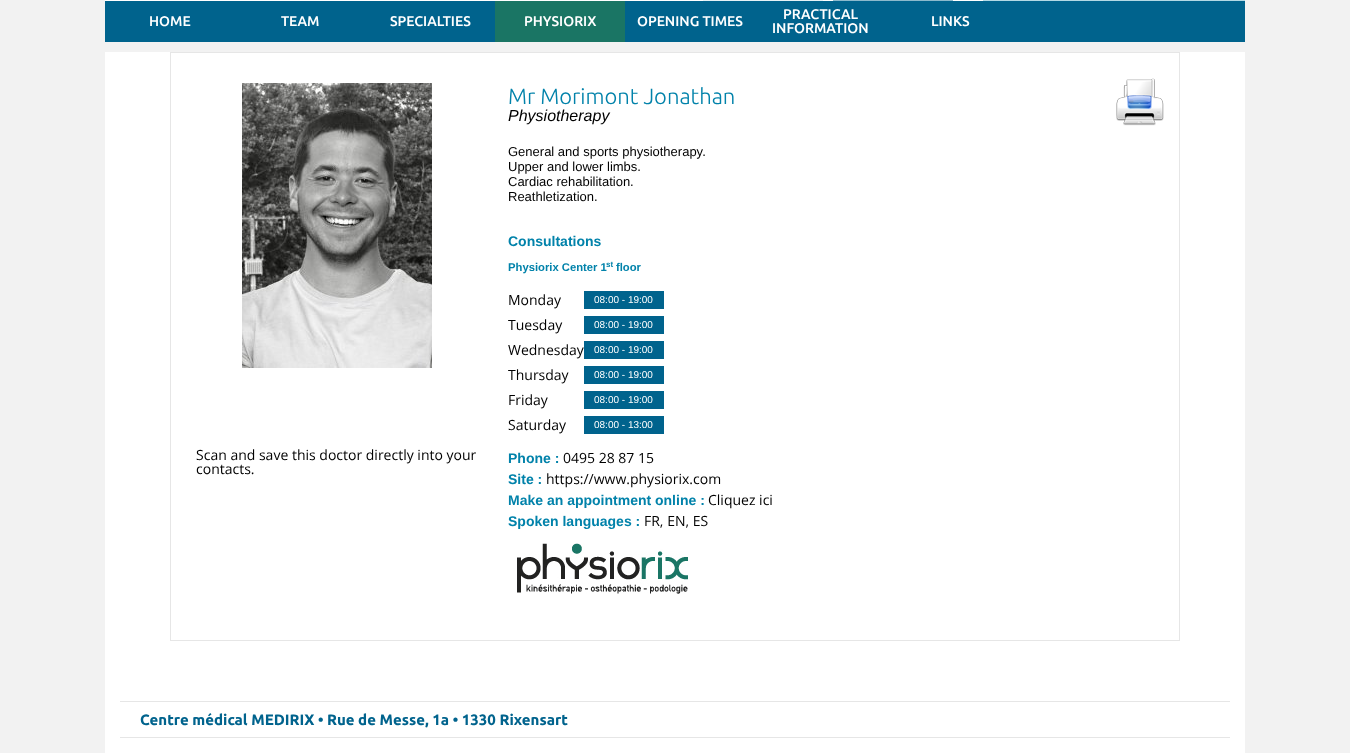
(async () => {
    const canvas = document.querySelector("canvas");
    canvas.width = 1350;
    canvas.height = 753;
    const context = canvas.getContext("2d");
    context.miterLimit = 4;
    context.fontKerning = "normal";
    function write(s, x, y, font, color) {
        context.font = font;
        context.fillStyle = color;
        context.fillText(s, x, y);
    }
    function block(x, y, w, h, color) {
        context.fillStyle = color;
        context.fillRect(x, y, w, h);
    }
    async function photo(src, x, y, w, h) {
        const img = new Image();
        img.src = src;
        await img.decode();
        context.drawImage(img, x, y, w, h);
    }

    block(0, 0, 1350, 753, "rgb(242, 242, 242)");
    block(105, 0, 878, 1, "rgb(255, 255, 255)");
    block(703, 0, 120, 1, "rgb(230, 242, 246)");
    block(833, 0, 120, 1, "rgb(140, 185, 204)");
    block(983, 0, 262, 1, "rgb(179, 217, 229)");
    block(105, 1, 1140, 41, "rgb(0, 99, 141)");
    write("HOME", 149, 26, "500 14px Ubuntu", "rgb(255, 255, 255)");
    write("TEAM", 281, 26, "500 14px Ubuntu", "rgb(255, 255, 255)");
    write("SPECIALTIES", 390, 26, "500 14px Ubuntu", "rgb(255, 255, 255)");
    block(495, 1, 130, 41, "rgb(26, 117, 100)");
    write("PHYSIORIX", 524, 26, "500 14px Ubuntu", "rgb(255, 255, 255)");
    write("OPENING TIMES", 637, 26, "500 14px Ubuntu", "rgb(255, 255, 255)");
    write("PRACTICAL", 783, 19, "500 14px Ubuntu", "rgb(255, 255, 255)");
    write("INFORMATION", 772, 33, "500 14px Ubuntu", "rgb(255, 255, 255)");
    write("LINKS", 931, 26, "500 14px Ubuntu", "rgb(255, 255, 255)");
    block(105, 52, 1140, 701, "rgb(255, 255, 255)");
    context.strokeStyle = "rgb(230, 230, 230)";
    context.strokeRect(170.5, 52.5, 1009, 588);
    await photo("media/1.png", 242, 83, 190, 285);
    write("Scan and save this doctor directly into your", 196, 460, "14px Open Sans", "rgb(0, 0, 0)");
    write("contacts.", 196, 474, "14px Open Sans", "rgb(0, 0, 0)");
    write("Mr Morimont Jonathan", 508, 104, "300 22px Ubuntu", "rgb(1, 130, 170)");
    write("Physiotherapy", 508, 121, "italic 16px Liberation Sans", "rgb(0, 0, 0)");
    write("General and sports physiotherapy.", 508, 156, "13px Liberation Sans", "rgb(0, 0, 0)");
    write("Upper and lower limbs.", 508, 171, "13px Liberation Sans", "rgb(0, 0, 0)");
    write("Cardiac rehabilitation.", 508, 186, "13px Liberation Sans", "rgb(0, 0, 0)");
    write("Reathletization.", 508, 201, "13px Liberation Sans", "rgb(0, 0, 0)");
    write("Consultations", 508, 246, "bold 14px Liberation Sans", "rgb(1, 130, 170)");
    write("Physiorix Center 1", 508, 271, "bold 11.25px Liberation Sans", "rgb(1, 130, 170)");
    write("st", 606, 267, "bold 8px Liberation Sans", "rgb(1, 130, 170)");
    write("floor", 616, 271, "bold 11.25px Liberation Sans", "rgb(1, 130, 170)");
    write("Monday", 508, 305, "14px Open Sans", "rgb(0, 0, 0)");
    block(584, 291, 80, 18, "rgb(0, 99, 141)");
    write("08:00 - 19:00", 594, 303, "10px Liberation Sans", "rgb(255, 255, 255)");
    write("Tuesday", 508, 330, "14px Open Sans", "rgb(0, 0, 0)");
    block(584, 316, 80, 18, "rgb(0, 99, 141)");
    write("08:00 - 19:00", 594, 328, "10px Liberation Sans", "rgb(255, 255, 255)");
    write("Wednesday", 508, 355, "14px Open Sans", "rgb(0, 0, 0)");
    block(584, 341, 80, 18, "rgb(0, 99, 141)");
    write("08:00 - 19:00", 594, 353, "10px Liberation Sans", "rgb(255, 255, 255)");
    write("Thursday", 508, 380, "14px Open Sans", "rgb(0, 0, 0)");
    block(584, 366, 80, 18, "rgb(0, 99, 141)");
    write("08:00 - 19:00", 594, 378, "10px Liberation Sans", "rgb(255, 255, 255)");
    write("Friday", 508, 405, "14px Open Sans", "rgb(0, 0, 0)");
    block(584, 391, 80, 18, "rgb(0, 99, 141)");
    write("08:00 - 19:00", 594, 403, "10px Liberation Sans", "rgb(255, 255, 255)");
    write("Saturday", 508, 430, "14px Open Sans", "rgb(0, 0, 0)");
    block(584, 416, 80, 18, "rgb(0, 99, 141)");
    write("08:00 - 13:00", 594, 428, "10px Liberation Sans", "rgb(255, 255, 255)");
    write("Phone :", 508, 463, "bold 14px Liberation Sans", "rgb(1, 130, 170)");
    write("0495 28 87 15", 563, 463, "14px Open Sans", "rgb(0, 0, 0)");
    write("Site :", 508, 484, "bold 14px Liberation Sans", "rgb(1, 130, 170)");
    write("https://www.physiorix.com", 546, 484, "14px Open Sans", "rgb(0, 0, 0)");
    write("Make an appointment online :", 508, 505, "bold 14px Liberation Sans", "rgb(1, 130, 170)");
    write("Cliquez ici", 708, 505, "14px Open Sans", "rgb(0, 0, 0)");
    write("Spoken languages :", 508, 526, "bold 14px Liberation Sans", "rgb(1, 130, 170)");
    write("FR, EN, ES", 644, 526, "14px Open Sans", "rgb(0, 0, 0)");
    await photo("media/2.png", 517, 543, 172, 51);
    await photo("media/3.png", 1116, 78, 48, 48);
    block(120, 701, 1110, 1, "rgb(230, 230, 230)");
    block(120, 737, 1110, 1, "rgb(230, 230, 230)");
    write("Centre médical MEDIRIX • Rue de Messe, 1a • 1330 Rixensart", 140, 725, "bold 15px Ubuntu", "rgb(0, 99, 141)");
})();
